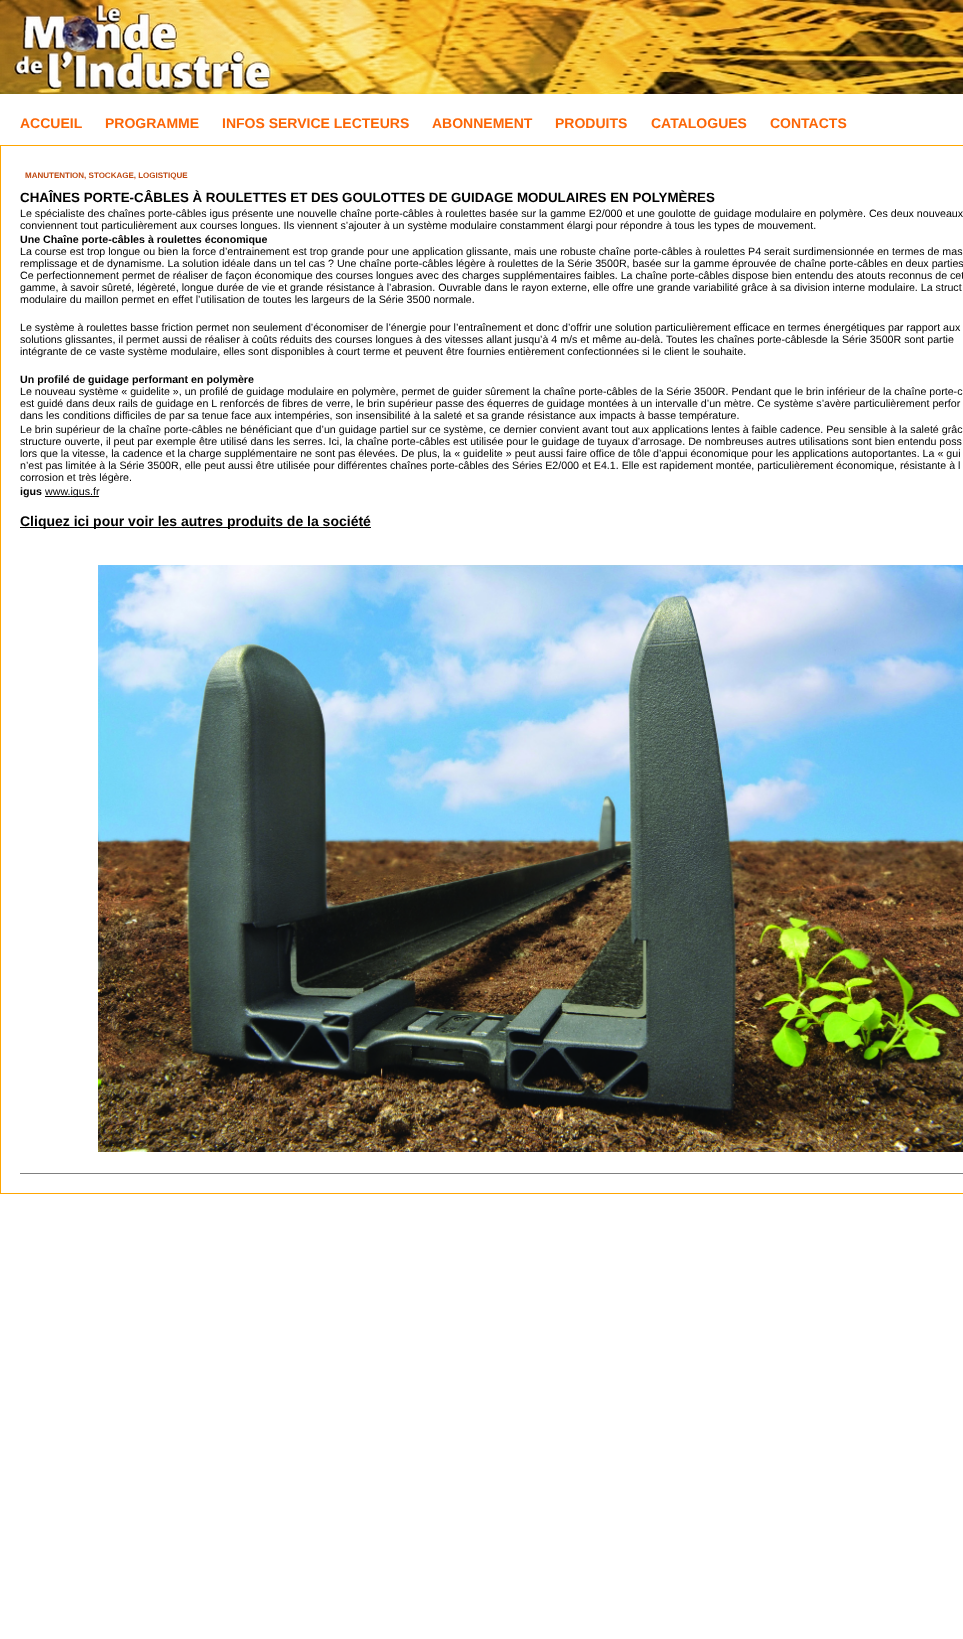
(async () => {
    const canvas = document.querySelector("canvas");
    canvas.width = 963;
    canvas.height = 1639;
    const context = canvas.getContext("2d");
    context.miterLimit = 4;
    context.fontKerning = "normal";
    function write(s, x, y, font, color) {
        context.font = font;
        context.fillStyle = color;
        context.fillText(s, x, y);
    }
    function block(x, y, w, h, color) {
        context.fillStyle = color;
        context.fillRect(x, y, w, h);
    }
    async function photo(src, x, y, w, h) {
        const img = new Image();
        img.src = src;
        await img.decode();
        context.drawImage(img, x, y, w, h);
    }

    block(0, 0, 963, 1639, "rgb(255, 255, 255)");
    await photo("media/1.png", 0, 0, 963, 94);
    write("ACCUEIL", 20, 128, "bold 14px Liberation Sans", "rgb(252, 102, 7)");
    write("PROGRAMME", 105, 128, "bold 14px Liberation Sans", "rgb(252, 102, 7)");
    write("INFOS SERVICE LECTEURS", 222, 128, "bold 14px Liberation Sans", "rgb(252, 102, 7)");
    write("ABONNEMENT", 432, 128, "bold 14px Liberation Sans", "rgb(252, 102, 7)");
    write("PRODUITS", 555, 128, "bold 14px Liberation Sans", "rgb(252, 102, 7)");
    write("CATALOGUES", 651, 128, "bold 14px Liberation Sans", "rgb(252, 102, 7)");
    write("CONTACTS", 770, 128, "bold 14px Liberation Sans", "rgb(252, 102, 7)");
    context.strokeStyle = "rgb(255, 165, 0)";
    context.strokeRect(0.5, 145.5, 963, 1048);
    write("MANUTENTION, STOCKAGE, LOGISTIQUE", 25, 178, "bold 8px Liberation Sans", "rgb(191, 72, 16)");
    write("CHAÎNES PORTE-CÂBLES À ROULETTES ET DES GOULOTTES DE GUIDAGE MODULAIRES EN POLYMÈRES", 20, 202, "bold 13.33px Liberation Sans", "rgb(0, 0, 0)");
    write("Le spécialiste des chaînes porte-câbles igus présente une nouvelle chaîne porte-câbles à roulettes basée sur la gamme E2/000 et une goulotte de guidage modulaire en polymère. Ces deux nouveaux", 20, 217, "10.67px Liberation Sans", "rgb(0, 0, 0)");
    write("conviennent tout particulièrement aux courses longues. Ils viennent s’ajouter à un système modulaire constamment élargi pour répondre à tous les types de mouvement.", 20, 229, "10.67px Liberation Sans", "rgb(0, 0, 0)");
    write("Une Chaîne porte-câbles à roulettes économique", 20, 243, "bold 10.67px Liberation Sans", "rgb(0, 0, 0)");
    write("La course est trop longue ou bien la force d’entrainement est trop grande pour une application glissante, mais une robuste chaîne porte-câbles à roulettes P4 serait surdimensionnée en termes de mas", 20, 255, "10.67px Liberation Sans", "rgb(0, 0, 0)");
    write("remplissage et de dynamisme. La solution idéale dans un tel cas ? Une chaîne porte-câbles légère à roulettes de la Série 3500R, basée sur la gamme éprouvée de chaîne porte-câbles en deux parties", 20, 267, "10.67px Liberation Sans", "rgb(0, 0, 0)");
    write("Ce perfectionnement permet de réaliser de façon économique des courses longues avec des charges supplémentaires faibles. La chaîne porte-câbles dispose bien entendu des atouts reconnus de cet", 20, 279, "10.67px Liberation Sans", "rgb(0, 0, 0)");
    write("gamme, à savoir sûreté, légèreté, longue durée de vie et grande résistance à l’abrasion. Ouvrable dans le rayon externe, elle offre une grande variabilité grâce à sa division interne modulaire. La struct", 20, 291, "10.67px Liberation Sans", "rgb(0, 0, 0)");
    write("modulaire du maillon permet en effet l’utilisation de toutes les largeurs de la Série 3500 normale.", 20, 303, "10.67px Liberation Sans", "rgb(0, 0, 0)");
    write("Le système à roulettes basse friction permet non seulement d’économiser de l’énergie pour l’entraînement et donc d’offrir une solution particulièrement efficace en termes énergétiques par rapport aux", 20, 331, "10.67px Liberation Sans", "rgb(0, 0, 0)");
    write("solutions glissantes, il permet aussi de réaliser à coûts réduits des courses longues à des vitesses allant jusqu’à 4 m/s et même au-delà. Toutes les chaînes porte-câblesde la Série 3500R sont partie", 20, 343, "10.67px Liberation Sans", "rgb(0, 0, 0)");
    write("intégrante de ce vaste système modulaire, elles sont disponibles à court terme et peuvent être fournies entièrement confectionnées si le client le souhaite.", 20, 355, "10.67px Liberation Sans", "rgb(0, 0, 0)");
    write("Un profilé de guidage performant en polymère", 20, 383, "bold 10.67px Liberation Sans", "rgb(0, 0, 0)");
    write("Le nouveau système « guidelite », un profilé de guidage modulaire en polymère, permet de guider sûrement la chaîne porte-câbles de la Série 3500R. Pendant que le brin inférieur de la chaîne porte-c", 20, 395, "10.67px Liberation Sans", "rgb(0, 0, 0)");
    write("est guidé dans deux rails de guidage en L renforcés de fibres de verre, le brin supérieur passe des équerres de guidage montées à un intervalle d’un mètre. Ce système s’avère particulièrement perfor", 20, 407, "10.67px Liberation Sans", "rgb(0, 0, 0)");
    write("dans les conditions difficiles de par sa tenue face aux intempéries, son insensibilité à la saleté et sa grande résistance aux impacts à basse température.", 20, 419, "10.67px Liberation Sans", "rgb(0, 0, 0)");
    write("Le brin supérieur de la chaîne porte-câbles ne bénéficiant que d’un guidage partiel sur ce système, ce dernier convient avant tout aux applications lentes à faible cadence. Peu sensible à la saleté grâc", 20, 433, "10.67px Liberation Sans", "rgb(0, 0, 0)");
    write("structure ouverte, il peut par exemple être utilisé dans les serres. Ici, la chaîne porte-câbles est utilisée pour le guidage de tuyaux d’arrosage. De nombreuses autres utilisations sont bien entendu poss", 20, 445, "10.67px Liberation Sans", "rgb(0, 0, 0)");
    write("lors que la vitesse, la cadence et la charge supplémentaire ne sont pas élevées. De plus, la « guidelite » peut aussi faire office de tôle d’appui économique pour les applications autoportantes. La « gui", 20, 457, "10.67px Liberation Sans", "rgb(0, 0, 0)");
    write("n’est pas limitée à la Série 3500R, elle peut aussi être utilisée pour différentes chaînes porte-câbles des Séries E2/000 et E4.1. Elle est rapidement montée, particulièrement économique, résistante à l", 20, 469, "10.67px Liberation Sans", "rgb(0, 0, 0)");
    write("corrosion et très légère.", 20, 481, "10.67px Liberation Sans", "rgb(0, 0, 0)");
    write("igus", 20, 495, "bold 10.67px Liberation Sans", "rgb(0, 0, 0)");
    block(45, 496, 54, 1, "rgb(0, 0, 0)");
    write("www.igus.fr", 45, 495, "10.67px Liberation Sans", "rgb(0, 0, 0)");
    block(20, 527, 351, 1, "rgb(0, 0, 0)");
    write("Cliquez ici pour voir les autres produits de la société", 20, 526, "bold 14px Liberation Sans", "rgb(0, 0, 0)");
    await photo("media/2.png", 98, 565, 865, 587);
    block(20, 1173, 943, 1, "rgb(128, 128, 128)");
})();
